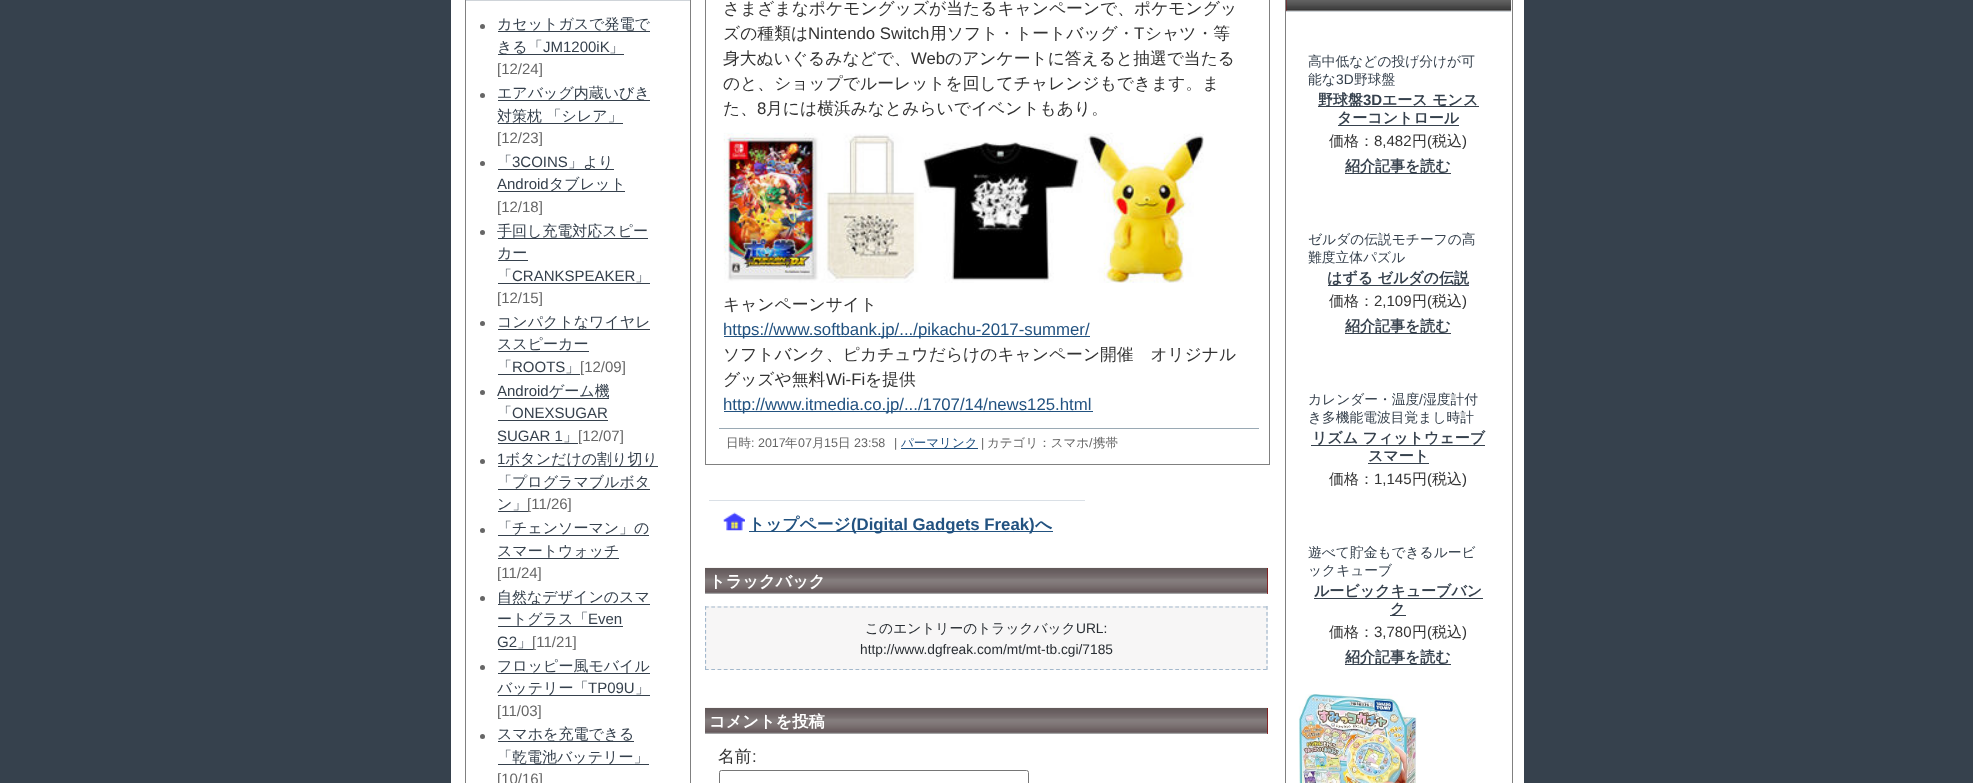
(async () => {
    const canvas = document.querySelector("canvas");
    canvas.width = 1973;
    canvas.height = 783;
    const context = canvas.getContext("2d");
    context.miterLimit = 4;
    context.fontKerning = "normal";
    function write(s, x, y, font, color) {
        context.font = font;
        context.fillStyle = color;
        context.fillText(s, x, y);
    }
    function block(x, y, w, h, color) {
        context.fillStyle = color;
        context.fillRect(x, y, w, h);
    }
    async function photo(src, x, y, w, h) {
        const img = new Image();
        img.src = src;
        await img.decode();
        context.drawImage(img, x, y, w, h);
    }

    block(0, 0, 1973, 783, "rgb(54, 65, 77)");
    block(451, 0, 1073, 783, "rgb(255, 255, 255)");
    context.strokeStyle = "rgb(128, 128, 128)";
    context.strokeRect(465.5, -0.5, 225, 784);
    block(466, 0, 224, 1, "rgb(207, 212, 217)");
    context.fillStyle = "rgb(102, 102, 102)";
    context.beginPath();
    context.arc(482.5, 26.5, 2.5, 0, Math.PI * 2);
    context.fill();
    write("カセットガスで発電で", 497, 29, "500 15px WenQuanYi Zen Hei", "rgb(54, 65, 77)");
    block(498, 31, 152, 1, "rgb(54, 65, 77)");
    block(498, 54, 126, 1, "rgb(54, 65, 77)");
    write("きる「", 497, 52, "500 15px WenQuanYi Zen Hei", "rgb(54, 65, 77)");
    write("JM1200iK", 543, 52, "15px Liberation Sans", "rgb(54, 65, 77)");
    write("」", 609, 52, "500 15px WenQuanYi Zen Hei", "rgb(54, 65, 77)");
    write("[12/24]", 497, 74, "15px Liberation Sans", "rgb(102, 102, 102)");
    context.beginPath();
    context.arc(482.5, 95.5, 2.5, 0, Math.PI * 2);
    context.fill();
    block(498, 100, 152, 1, "rgb(54, 65, 77)");
    write("エアバッグ内蔵いびき", 497, 98, "500 15px WenQuanYi Zen Hei", "rgb(54, 65, 77)");
    write("対策枕 「シレア」", 497, 121, "500 15px WenQuanYi Zen Hei", "rgb(54, 65, 77)");
    block(498, 123, 125, 1, "rgb(54, 65, 77)");
    write("[12/23]", 497, 143, "15px Liberation Sans", "rgb(102, 102, 102)");
    context.beginPath();
    context.arc(482.5, 163.5, 2.5, 0, Math.PI * 2);
    context.fill();
    write("「", 497, 167, "500 15px WenQuanYi Zen Hei", "rgb(54, 65, 77)");
    write("3COINS", 512, 167, "15px Liberation Sans", "rgb(54, 65, 77)");
    block(498, 169, 116, 1, "rgb(54, 65, 77)");
    write("」より", 568, 167, "500 15px WenQuanYi Zen Hei", "rgb(54, 65, 77)");
    write("Android", 497, 189, "15px Liberation Sans", "rgb(54, 65, 77)");
    block(498, 191, 127, 1, "rgb(54, 65, 77)");
    write("タブレット", 549, 189, "500 15px WenQuanYi Zen Hei", "rgb(54, 65, 77)");
    write("[12/18]", 497, 212, "15px Liberation Sans", "rgb(102, 102, 102)");
    context.beginPath();
    context.arc(482.5, 232.5, 2.5, 0, Math.PI * 2);
    context.fill();
    block(498, 238, 150, 1, "rgb(54, 65, 77)");
    write("手回し充電対応スピー", 497, 236, "500 15px WenQuanYi Zen Hei", "rgb(54, 65, 77)");
    write("カー", 497, 258, "500 15px WenQuanYi Zen Hei", "rgb(54, 65, 77)");
    block(498, 260, 30, 1, "rgb(54, 65, 77)");
    write("「", 497, 281, "500 15px WenQuanYi Zen Hei", "rgb(54, 65, 77)");
    write("CRANKSPEAKER", 512, 281, "15px Liberation Sans", "rgb(54, 65, 77)");
    write("」", 635, 281, "500 15px WenQuanYi Zen Hei", "rgb(54, 65, 77)");
    block(498, 283, 152, 1, "rgb(54, 65, 77)");
    write("[12/15]", 497, 303, "15px Liberation Sans", "rgb(102, 102, 102)");
    context.beginPath();
    context.arc(482.5, 323.5, 2.5, 0, Math.PI * 2);
    context.fill();
    block(498, 329, 152, 1, "rgb(54, 65, 77)");
    write("コンパクトなワイヤレ", 497, 327, "500 15px WenQuanYi Zen Hei", "rgb(54, 65, 77)");
    write("ススピーカー", 497, 349, "500 15px WenQuanYi Zen Hei", "rgb(54, 65, 77)");
    block(498, 351, 91, 1, "rgb(54, 65, 77)");
    write("「", 497, 372, "500 15px WenQuanYi Zen Hei", "rgb(54, 65, 77)");
    write("ROOTS", 512, 372, "15px Liberation Sans", "rgb(54, 65, 77)");
    write("」", 565, 372, "500 15px WenQuanYi Zen Hei", "rgb(54, 65, 77)");
    block(498, 374, 82, 1, "rgb(54, 65, 77)");
    write("[12/09]", 580, 372, "15px Liberation Sans", "rgb(102, 102, 102)");
    context.beginPath();
    context.arc(482.5, 392.5, 2.5, 0, Math.PI * 2);
    context.fill();
    write("Android", 497, 396, "15px Liberation Sans", "rgb(54, 65, 77)");
    block(498, 398, 111, 1, "rgb(54, 65, 77)");
    write("ゲーム機", 549, 396, "500 15px WenQuanYi Zen Hei", "rgb(54, 65, 77)");
    write("「", 497, 418, "500 15px WenQuanYi Zen Hei", "rgb(54, 65, 77)");
    write("ONEXSUGAR", 512, 418, "15px Liberation Sans", "rgb(54, 65, 77)");
    block(498, 420, 110, 1, "rgb(54, 65, 77)");
    write("SUGAR 1", 497, 441, "15px Liberation Sans", "rgb(54, 65, 77)");
    write("」", 563, 441, "500 15px WenQuanYi Zen Hei", "rgb(54, 65, 77)");
    block(498, 443, 80, 1, "rgb(54, 65, 77)");
    write("[12/07]", 578, 441, "15px Liberation Sans", "rgb(102, 102, 102)");
    context.beginPath();
    context.arc(482.5, 461.5, 2.5, 0, Math.PI * 2);
    context.fill();
    write("1", 497, 464, "15px Liberation Sans", "rgb(54, 65, 77)");
    block(498, 466, 160, 1, "rgb(54, 65, 77)");
    write("ボタンだけの割り切り", 505, 464, "500 15px WenQuanYi Zen Hei", "rgb(54, 65, 77)");
    block(498, 489, 152, 1, "rgb(54, 65, 77)");
    write("「プログラマブルボタ", 497, 487, "500 15px WenQuanYi Zen Hei", "rgb(54, 65, 77)");
    write("ン」", 497, 509, "500 15px WenQuanYi Zen Hei", "rgb(54, 65, 77)");
    block(498, 511, 30, 1, "rgb(54, 65, 77)");
    write("[11/26]", 527, 509, "15px Liberation Sans", "rgb(102, 102, 102)");
    context.beginPath();
    context.arc(482.5, 530.5, 2.5, 0, Math.PI * 2);
    context.fill();
    write("「チェンソーマン」の", 497, 533, "500 15px WenQuanYi Zen Hei", "rgb(54, 65, 77)");
    block(498, 535, 151, 1, "rgb(54, 65, 77)");
    write("スマートウォッチ", 497, 556, "500 15px WenQuanYi Zen Hei", "rgb(54, 65, 77)");
    block(498, 558, 121, 1, "rgb(54, 65, 77)");
    write("[11/24]", 497, 578, "15px Liberation Sans", "rgb(102, 102, 102)");
    context.beginPath();
    context.arc(482.5, 598.5, 2.5, 0, Math.PI * 2);
    context.fill();
    block(498, 604, 152, 1, "rgb(54, 65, 77)");
    write("自然なデザインのスマ", 497, 602, "500 15px WenQuanYi Zen Hei", "rgb(54, 65, 77)");
    write("ートグラス「", 497, 624, "500 15px WenQuanYi Zen Hei", "rgb(54, 65, 77)");
    write("Even", 588, 624, "15px Liberation Sans", "rgb(54, 65, 77)");
    block(498, 626, 125, 1, "rgb(54, 65, 77)");
    write("G2", 497, 647, "15px Liberation Sans", "rgb(54, 65, 77)");
    write("」", 517, 647, "500 15px WenQuanYi Zen Hei", "rgb(54, 65, 77)");
    block(498, 649, 35, 1, "rgb(54, 65, 77)");
    write("[11/21]", 532, 647, "15px Liberation Sans", "rgb(102, 102, 102)");
    context.beginPath();
    context.arc(482.5, 667.5, 2.5, 0, Math.PI * 2);
    context.fill();
    write("フロッピー風モバイル", 497, 671, "500 15px WenQuanYi Zen Hei", "rgb(54, 65, 77)");
    block(498, 673, 152, 1, "rgb(54, 65, 77)");
    block(498, 695, 152, 1, "rgb(54, 65, 77)");
    write("バッテリー「", 497, 693, "500 15px WenQuanYi Zen Hei", "rgb(54, 65, 77)");
    write("TP09U", 588, 693, "15px Liberation Sans", "rgb(54, 65, 77)");
    write("」", 635, 693, "500 15px WenQuanYi Zen Hei", "rgb(54, 65, 77)");
    write("[11/03]", 497, 716, "15px Liberation Sans", "rgb(102, 102, 102)");
    context.beginPath();
    context.arc(482.5, 736.5, 2.5, 0, Math.PI * 2);
    context.fill();
    block(498, 741, 136, 1, "rgb(54, 65, 77)");
    write("スマホを充電できる", 497, 739, "500 15px WenQuanYi Zen Hei", "rgb(54, 65, 77)");
    block(498, 764, 151, 1, "rgb(54, 65, 77)");
    write("「乾電池バッテリー」", 497, 762, "500 15px WenQuanYi Zen Hei", "rgb(54, 65, 77)");
    write("[10/16]", 497, 784, "15px Liberation Sans", "rgb(102, 102, 102)");
    context.strokeRect(705.5, -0.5, 564, 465);
    write("さまざまなポケモングッズが当たるキャンペーンで、ポケモングッ", 723, 14, "500 16.8px WenQuanYi Zen Hei", "rgb(51, 51, 51)");
    write("ズの種類は", 723, 39, "500 16.8px WenQuanYi Zen Hei", "rgb(51, 51, 51)");
    write("Nintendo Switch", 808, 39, "16.8px Liberation Sans", "rgb(51, 51, 51)");
    write("用ソフト・トートバッグ・", 930, 39, "500 16.8px WenQuanYi Zen Hei", "rgb(51, 51, 51)");
    write("T", 1134, 39, "16.8px Liberation Sans", "rgb(51, 51, 51)");
    write("シャツ・等", 1145, 39, "500 16.8px WenQuanYi Zen Hei", "rgb(51, 51, 51)");
    write("身大ぬいぐるみなどで、", 723, 64, "500 16.8px WenQuanYi Zen Hei", "rgb(51, 51, 51)");
    write("Web", 911, 64, "16.8px Liberation Sans", "rgb(51, 51, 51)");
    write("のアンケートに答えると抽選で当たる", 945, 64, "500 16.8px WenQuanYi Zen Hei", "rgb(51, 51, 51)");
    write("のと、ショップでルーレットを回してチャレンジもできます。ま", 723, 89, "500 16.8px WenQuanYi Zen Hei", "rgb(51, 51, 51)");
    write("た、", 723, 114, "500 16.8px WenQuanYi Zen Hei", "rgb(51, 51, 51)");
    write("8", 757, 114, "16.8px Liberation Sans", "rgb(51, 51, 51)");
    write("月には横浜みなとみらいでイベントもあり。", 766, 114, "500 16.8px WenQuanYi Zen Hei", "rgb(51, 51, 51)");
    await photo("media/1.png", 723, 132, 481, 151);
    write("キャンペーンサイト", 723, 310, "500 16.8px WenQuanYi Zen Hei", "rgb(51, 51, 51)");
    block(724, 336, 366, 1, "rgb(34, 82, 128)");
    write("https://www.softbank.jp/.../pikachu-2017-summer/", 723, 335, "16.8px Liberation Sans", "rgb(34, 82, 128)");
    write("ソフトバンク、ピカチュウだらけのキャンペーン開催　オリジナル", 723, 360, "500 16.8px WenQuanYi Zen Hei", "rgb(51, 51, 51)");
    write("グッズや無料", 723, 385, "500 16.8px WenQuanYi Zen Hei", "rgb(51, 51, 51)");
    write("Wi-Fi", 826, 385, "16.8px Liberation Sans", "rgb(51, 51, 51)");
    write("を提供", 865, 385, "500 16.8px WenQuanYi Zen Hei", "rgb(51, 51, 51)");
    block(724, 411, 369, 1, "rgb(34, 82, 128)");
    write("http://www.itmedia.co.jp/.../1707/14/news125.html", 723, 410, "16.8px Liberation Sans", "rgb(34, 82, 128)");
    block(719, 428, 540, 1, "rgb(154, 169, 180)");
    write("日時", 726, 447, "500 12.5px WenQuanYi Zen Hei", "rgb(102, 102, 102)");
    write(": 2017", 751, 447, "12.5px Liberation Sans", "rgb(102, 102, 102)");
    write("年", 785, 447, "500 12.5px WenQuanYi Zen Hei", "rgb(102, 102, 102)");
    write("07", 798, 447, "12.5px Liberation Sans", "rgb(102, 102, 102)");
    write("月", 812, 447, "500 12.5px WenQuanYi Zen Hei", "rgb(102, 102, 102)");
    write("15", 824, 447, "12.5px Liberation Sans", "rgb(102, 102, 102)");
    write("日", 838, 447, "500 12.5px WenQuanYi Zen Hei", "rgb(102, 102, 102)");
    write("23:58", 854, 447, "12.5px Liberation Sans", "rgb(102, 102, 102)");
    write("|", 894, 447, "12.5px Liberation Sans", "rgb(102, 102, 102)");
    block(901, 448, 77, 1, "rgb(34, 82, 128)");
    write("パーマリンク", 901, 447, "500 12.5px WenQuanYi Zen Hei", "rgb(34, 82, 128)");
    write("|", 981, 447, "12.5px Liberation Sans", "rgb(102, 102, 102)");
    write("カテゴリ：スマホ", 987, 447, "500 12.5px WenQuanYi Zen Hei", "rgb(102, 102, 102)");
    write("/", 1089, 447, "12.5px Liberation Sans", "rgb(102, 102, 102)");
    write("携帯", 1093, 447, "500 12.5px WenQuanYi Zen Hei", "rgb(102, 102, 102)");
    block(709, 500, 376, 1, "rgb(218, 224, 230)");
    await photo("media/2.png", 723, 512, 22, 19);
    block(749, 531, 304, 1, "rgb(34, 82, 128)");
    write("トップページ", 748, 530, "bold 16.8px WenQuanYi Zen Hei", "rgb(34, 82, 128)");
    write("(Digital Gadgets Freak)", 851, 530, "bold 16.8px Liberation Sans", "rgb(34, 82, 128)");
    write("へ", 1035, 530, "bold 16.8px WenQuanYi Zen Hei", "rgb(34, 82, 128)");
    block(1267, 568, 1, 26, "rgb(141, 11, 13)");
    await photo("media/3.png", 705, 567, 563, 27);
    write("トラックバック", 709, 587, "bold 16.25px WenQuanYi Zen Hei", "rgb(255, 255, 255)");
    block(705, 606, 563, 64, "rgb(247, 246, 246)");
    context.beginPath();
    context.moveTo(705, 607);
    context.lineTo(1267.5, 607);
    context.strokeStyle = "rgb(163, 184, 204)";
    context.lineWidth = 1.2;
    context.setLineDash([3.75, 2.52]);
    context.stroke();
    context.beginPath();
    context.moveTo(1267, 606);
    context.lineTo(1267, 670);
    context.setLineDash([3.75, 2.25]);
    context.stroke();
    context.beginPath();
    context.moveTo(705, 669.5);
    context.lineTo(1267.5, 669.5);
    context.setLineDash([3.75, 2.52]);
    context.stroke();
    context.save();
    context.beginPath();
    context.rect(705, 568, 563, 115);
    context.clip();
    context.beginPath();
    context.moveTo(705.5, 606);
    context.lineTo(705.5, 670);
    context.setLineDash([3.75, 2.25]);
    context.stroke();
    context.restore();
    write("このエントリーのトラックバック", 865, 633, "500 13.75px WenQuanYi Zen Hei", "rgb(41, 46, 51)");
    write("URL:", 1076, 633, "13.75px Liberation Sans", "rgb(41, 46, 51)");
    write("http://www.dgfreak.com/mt/mt-tb.cgi/7185", 860, 654, "13.75px Liberation Sans", "rgb(41, 46, 51)");
    block(1267, 708, 1, 26, "rgb(141, 11, 13)");
    await photo("media/3.png", 705, 707, 563, 27);
    write("コメントを投稿", 709, 727, "bold 16.25px WenQuanYi Zen Hei", "rgb(255, 255, 255)");
    write("名前", 718, 762, "500 16.8px WenQuanYi Zen Hei", "rgb(51, 51, 51)");
    write(":", 752, 762, "16.8px Liberation Sans", "rgb(51, 51, 51)");
    context.beginPath();
    context.roundRect(719.5, 770.5, 309, 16, 2);
    context.strokeStyle = "rgb(118, 118, 118)";
    context.lineWidth = 1;
    context.setLineDash([]);
    context.stroke();
    context.strokeStyle = "rgb(128, 128, 128)";
    context.strokeRect(1285.5, -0.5, 227, 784);
    block(1286, 0, 1, 11, "rgb(141, 11, 13)");
    await photo("media/4.png", 1286, 0, 226, 12);
    block(1286, 11, 225, 1, "rgb(207, 212, 217)");
    write("高中低などの投げ分けが可", 1308, 66, "500 13.75px WenQuanYi Zen Hei", "rgb(54, 65, 77)");
    write("能な", 1308, 84, "500 13.75px WenQuanYi Zen Hei", "rgb(54, 65, 77)");
    write("3D", 1336, 84, "13.75px Liberation Sans", "rgb(54, 65, 77)");
    write("野球盤", 1354, 84, "500 13.75px WenQuanYi Zen Hei", "rgb(54, 65, 77)");
    block(1318, 106, 161, 1, "rgb(54, 65, 77)");
    write("野球盤", 1318, 105, "bold 15px WenQuanYi Zen Hei", "rgb(54, 65, 77)");
    write("3D", 1363, 105, "bold 15px Liberation Sans", "rgb(54, 65, 77)");
    write("エース モンス", 1382, 105, "bold 15px WenQuanYi Zen Hei", "rgb(54, 65, 77)");
    block(1338, 125, 121, 1, "rgb(54, 65, 77)");
    write("ターコントロール", 1337, 123, "bold 15px WenQuanYi Zen Hei", "rgb(54, 65, 77)");
    write("価格：", 1329, 146, "500 15px WenQuanYi Zen Hei", "rgb(51, 51, 51)");
    write("8,482", 1374, 146, "15px Liberation Sans", "rgb(51, 51, 51)");
    write("円", 1412, 146, "500 15px WenQuanYi Zen Hei", "rgb(51, 51, 51)");
    write("(", 1427, 146, "15px Liberation Sans", "rgb(51, 51, 51)");
    write("税込", 1432, 146, "500 15px WenQuanYi Zen Hei", "rgb(51, 51, 51)");
    write(")", 1462, 146, "15px Liberation Sans", "rgb(51, 51, 51)");
    block(1345, 173, 106, 1, "rgb(54, 65, 77)");
    write("紹介記事を読む", 1345, 171, "bold 15px WenQuanYi Zen Hei", "rgb(54, 65, 77)");
    write("ゼルダの伝説モチーフの高", 1308, 244, "500 13.75px WenQuanYi Zen Hei", "rgb(54, 65, 77)");
    write("難度立体パズル", 1308, 262, "500 13.75px WenQuanYi Zen Hei", "rgb(54, 65, 77)");
    block(1328, 285, 141, 1, "rgb(54, 65, 77)");
    write("はずる ゼルダの伝説", 1327, 283, "bold 15px WenQuanYi Zen Hei", "rgb(54, 65, 77)");
    write("価格：", 1329, 306, "500 15px WenQuanYi Zen Hei", "rgb(51, 51, 51)");
    write("2,109", 1374, 306, "15px Liberation Sans", "rgb(51, 51, 51)");
    write("円", 1412, 306, "500 15px WenQuanYi Zen Hei", "rgb(51, 51, 51)");
    write("(", 1427, 306, "15px Liberation Sans", "rgb(51, 51, 51)");
    write("税込", 1432, 306, "500 15px WenQuanYi Zen Hei", "rgb(51, 51, 51)");
    write(")", 1462, 306, "15px Liberation Sans", "rgb(51, 51, 51)");
    block(1345, 333, 106, 1, "rgb(54, 65, 77)");
    write("紹介記事を読む", 1345, 331, "bold 15px WenQuanYi Zen Hei", "rgb(54, 65, 77)");
    write("カレンダー・温度", 1308, 404, "500 13.75px WenQuanYi Zen Hei", "rgb(54, 65, 77)");
    write("/", 1419, 404, "13.75px Liberation Sans", "rgb(54, 65, 77)");
    write("湿度計付", 1423, 404, "500 13.75px WenQuanYi Zen Hei", "rgb(54, 65, 77)");
    write("き多機能電波目覚まし時計", 1308, 422, "500 13.75px WenQuanYi Zen Hei", "rgb(54, 65, 77)");
    block(1311, 445, 174, 1, "rgb(54, 65, 77)");
    write("リズム フィットウェーブ", 1312, 443, "bold 15px WenQuanYi Zen Hei", "rgb(54, 65, 77)");
    write("スマート", 1368, 461, "bold 15px WenQuanYi Zen Hei", "rgb(54, 65, 77)");
    block(1368, 463, 61, 1, "rgb(54, 65, 77)");
    write("価格：", 1329, 484, "500 15px WenQuanYi Zen Hei", "rgb(51, 51, 51)");
    write("1,145", 1374, 484, "15px Liberation Sans", "rgb(51, 51, 51)");
    write("円", 1412, 484, "500 15px WenQuanYi Zen Hei", "rgb(51, 51, 51)");
    write("(", 1427, 484, "15px Liberation Sans", "rgb(51, 51, 51)");
    write("税込", 1432, 484, "500 15px WenQuanYi Zen Hei", "rgb(51, 51, 51)");
    write(")", 1462, 484, "15px Liberation Sans", "rgb(51, 51, 51)");
    write("遊べて貯金もできるルービ", 1308, 557, "500 13.75px WenQuanYi Zen Hei", "rgb(54, 65, 77)");
    write("ックキューブ", 1308, 575, "500 13.75px WenQuanYi Zen Hei", "rgb(54, 65, 77)");
    write("ルービックキューブバン", 1314, 596, "bold 15px WenQuanYi Zen Hei", "rgb(54, 65, 77)");
    block(1314, 598, 169, 1, "rgb(54, 65, 77)");
    block(1390, 615, 16, 1, "rgb(54, 65, 77)");
    write("ク", 1390, 614, "bold 15px WenQuanYi Zen Hei", "rgb(54, 65, 77)");
    write("価格：", 1329, 637, "500 15px WenQuanYi Zen Hei", "rgb(51, 51, 51)");
    write("3,780", 1374, 637, "15px Liberation Sans", "rgb(51, 51, 51)");
    write("円", 1412, 637, "500 15px WenQuanYi Zen Hei", "rgb(51, 51, 51)");
    write("(", 1427, 637, "15px Liberation Sans", "rgb(51, 51, 51)");
    write("税込", 1432, 637, "500 15px WenQuanYi Zen Hei", "rgb(51, 51, 51)");
    write(")", 1462, 637, "15px Liberation Sans", "rgb(51, 51, 51)");
    block(1345, 664, 106, 1, "rgb(54, 65, 77)");
    write("紹介記事を読む", 1345, 662, "bold 15px WenQuanYi Zen Hei", "rgb(54, 65, 77)");
    await photo("media/5.png", 1298, 694, 119, 89);
})();
